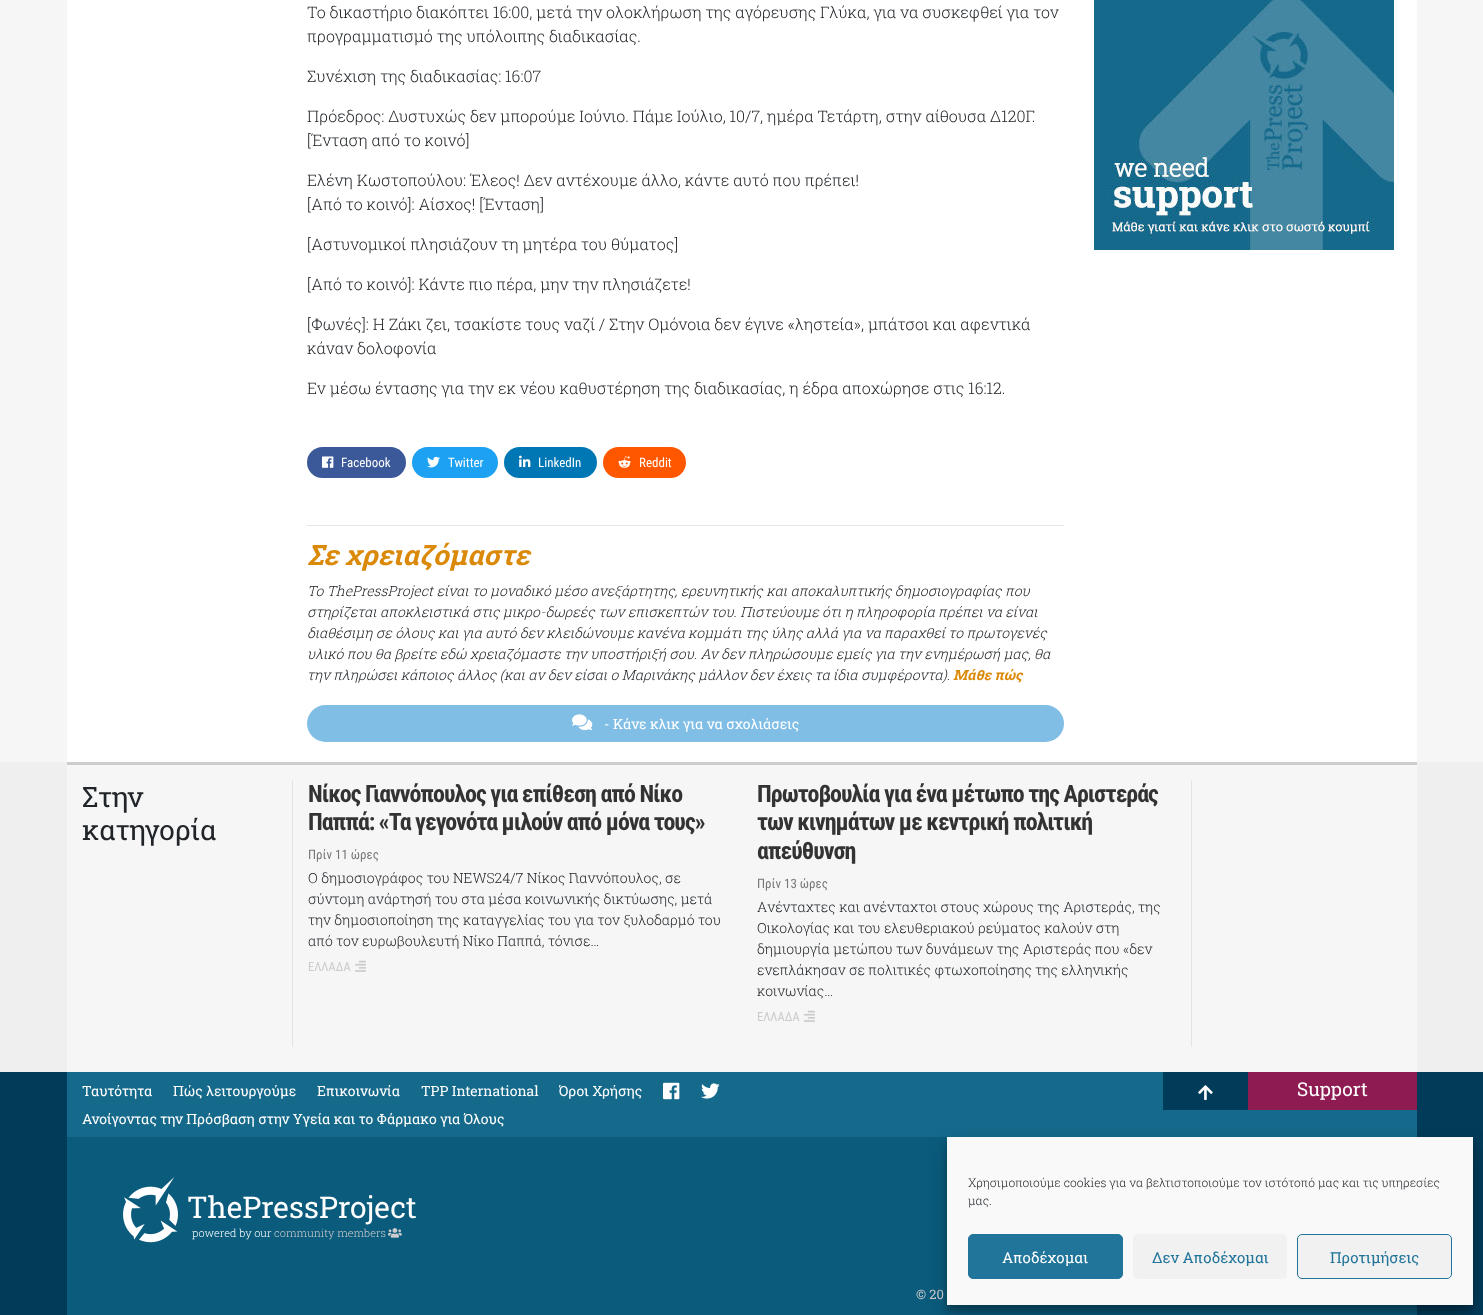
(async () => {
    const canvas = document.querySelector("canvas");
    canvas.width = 1483;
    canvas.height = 1315;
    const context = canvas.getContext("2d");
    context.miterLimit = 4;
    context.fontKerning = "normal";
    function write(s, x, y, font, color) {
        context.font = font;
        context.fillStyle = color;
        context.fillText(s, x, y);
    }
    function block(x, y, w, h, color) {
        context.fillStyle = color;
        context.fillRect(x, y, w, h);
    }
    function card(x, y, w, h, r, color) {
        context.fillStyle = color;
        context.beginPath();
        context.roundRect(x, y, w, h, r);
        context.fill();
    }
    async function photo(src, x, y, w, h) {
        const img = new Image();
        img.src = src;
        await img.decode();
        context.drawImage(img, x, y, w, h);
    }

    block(0, 0, 1483, 1315, "rgb(246, 246, 246)");
    block(67, 0, 1350, 762, "rgb(255, 255, 255)");
    write("Το δικαστήριο διακόπτει 16:00, μετά την ολοκλήρωση της αγόρευσης Γλύκα, για να συσκεφθεί για τον", 307, 18, "300 16px Roboto Slab", "rgb(33, 37, 41)");
    write("προγραμματισμό της υπόλοιπης διαδικασίας.", 307, 42, "300 16px Roboto Slab", "rgb(33, 37, 41)");
    write("Συνέχιση της διαδικασίας: 16:07", 307, 82, "300 16px Roboto Slab", "rgb(33, 37, 41)");
    write("Πρόεδρος: Δυστυχώς δεν μπορούμε Ιούνιο. Πάμε Ιούλιο, 10/7, ημέρα Τετάρτη, στην αίθουσα Δ120Γ.", 307, 122, "300 16px Roboto Slab", "rgb(33, 37, 41)");
    write("[Ένταση από το κοινό]", 307, 146, "300 16px Roboto Slab", "rgb(33, 37, 41)");
    write("Ελένη Κωστοπούλου: Έλεος! Δεν αντέχουμε άλλο, κάντε αυτό που πρέπει!", 307, 186, "300 16px Roboto Slab", "rgb(33, 37, 41)");
    write("[Από το κοινό]: Αίσχος! [Ένταση]", 307, 210, "300 16px Roboto Slab", "rgb(33, 37, 41)");
    write("[Αστυνομικοί πλησιάζουν τη μητέρα του θύματος]", 307, 250, "300 16px Roboto Slab", "rgb(33, 37, 41)");
    write("[Από το κοινό]: Κάντε πιο πέρα, μην την πλησιάζετε!", 307, 290, "300 16px Roboto Slab", "rgb(33, 37, 41)");
    write("[Φωνές]: Η Ζάκι ζει, τσακίστε τους ναζί / Στην Ομόνοια δεν έγινε «ληστεία», μπάτσοι και αφεντικά", 307, 330, "300 16px Roboto Slab", "rgb(33, 37, 41)");
    write("κάναν δολοφονία", 307, 354, "300 16px Roboto Slab", "rgb(33, 37, 41)");
    write("Εν μέσω έντασης για την εκ νέου καθυστέρηση της διαδικασίας, η έδρα αποχώρησε στις 16:12.", 307, 394, "300 16px Roboto Slab", "rgb(33, 37, 41)");
    card(307, 447, 99, 31, 15.5, "rgb(59, 89, 152)");
    await photo("media/1.png", 322, 456, 12, 12);
    write("Facebook", 341, 467, "13px Roboto Condensed", "rgb(255, 255, 255)");
    card(412, 447, 86, 31, 15.5, "rgb(29, 161, 242)");
    await photo("media/2.png", 427, 456, 13, 12);
    write("Twitter", 448, 467, "13px Roboto Condensed", "rgb(255, 255, 255)");
    card(504, 447, 93, 31, 15.5, "rgb(0, 119, 181)");
    await photo("media/3.png", 519, 455, 12, 12);
    write("LinkedIn", 538, 467, "13px Roboto Condensed", "rgb(255, 255, 255)");
    card(603, 447, 83, 31, 15.5, "rgb(255, 87, 0)");
    await photo("media/4.png", 618, 456, 13, 12);
    write("Reddit", 639, 467, "13px Roboto Condensed", "rgb(255, 255, 255)");
    block(307, 525, 757, 1, "rgb(230, 230, 230)");
    write("Σε χρειαζόμαστε", 307, 565, "italic bold 28px Roboto Slab", "rgb(219, 137, 8)");
    write("Το ThePressProject είναι το μοναδικό μέσο ανεξάρτητης, ερευνητικής και αποκαλυπτικής δημοσιογραφίας που", 307, 596, "italic 300 14px Roboto Slab", "rgb(33, 37, 41)");
    write("στηρίζεται αποκλειστικά στις μικρο-δωρεές των επισκεπτών του. Πιστεύουμε ότι η πληροφορία πρέπει να είναι", 307, 617, "italic 300 14px Roboto Slab", "rgb(33, 37, 41)");
    write("διαθέσιμη σε όλους και για αυτό δεν κλειδώνουμε κανένα κομμάτι της ύλης αλλά για να παραχθεί το πρωτογενές", 307, 638, "italic 300 14px Roboto Slab", "rgb(33, 37, 41)");
    write("υλικό που θα βρείτε εδώ χρειαζόμαστε την υποστήριξή σου. Αν δεν πληρώσουμε εμείς για την ενημέρωσή μας, θα", 307, 659, "italic 300 14px Roboto Slab", "rgb(33, 37, 41)");
    write("την πληρώσει κάποιος άλλος (και αν δεν είσαι ο Μαρινάκης μάλλον δεν έχεις τα ίδια συμφέροντα).", 307, 680, "italic 300 14px Roboto Slab", "rgb(33, 37, 41)");
    write("Μάθε πώς", 953, 680, "italic bold 14px Roboto Slab", "rgb(219, 137, 8)");
    card(307, 705, 757, 37, 18.5, "rgb(129, 190, 230)");
    await photo("media/5.png", 572, 714, 21, 17);
    write("- Κάνε κλικ για να σχολιάσεις", 604, 729, "14px Roboto Slab", "rgb(255, 255, 255)");
    await photo("media/6.png", 1094, 0, 300, 250);
    block(0, 762, 1483, 310, "rgb(239, 239, 239)");
    block(67, 765, 1350, 307, "rgb(246, 246, 246)");
    block(67, 762, 1350, 3, "rgb(204, 204, 204)");
    write("Στην", 82, 807, "28px Roboto Slab", "rgb(33, 37, 41)");
    write("κατηγορία", 82, 840, "28px Roboto Slab", "rgb(33, 37, 41)");
    block(1191, 780, 1, 267, "rgb(227, 227, 227)");
    block(292, 780, 1, 267, "rgb(227, 227, 227)");
    context.letterSpacing = "-1px";
    write("Νίκος Γιαννόπουλος για επίθεση από Νίκο", 308, 802, "bold 24px Roboto Condensed", "rgb(51, 51, 51)");
    write("Παππά: «Τα γεγονότα μιλούν από μόνα τους»", 308, 830, "bold 24px Roboto Condensed", "rgb(51, 51, 51)");
    context.letterSpacing = "0px";
    write("Πρίν 11 ώρες", 308, 859, "13px Roboto Condensed", "rgb(119, 119, 119)");
    write("Ο δημοσιογράφος του NEWS24/7 Νίκος Γιαννόπουλος, σε", 308, 883, "300 14px Roboto Slab", "rgb(33, 37, 41)");
    write("σύντομη ανάρτησή του στα μέσα κοινωνικής δικτύωσης, μετά", 308, 904, "300 14px Roboto Slab", "rgb(33, 37, 41)");
    write("την δημοσιοποίηση της καταγγελίας του για τον ξυλοδαρμό του", 308, 925, "300 14px Roboto Slab", "rgb(33, 37, 41)");
    write("από τον ευρωβουλευτή Νίκο Παππά, τόνισε…", 308, 946, "300 14px Roboto Slab", "rgb(33, 37, 41)");
    write("ΕΛΛΑΔΑ", 308, 971, "12.5px Roboto Condensed", "rgb(204, 204, 204)");
    await photo("media/7.png", 355, 960, 11, 12);
    context.letterSpacing = "-1px";
    write("Πρωτοβουλία για ένα μέτωπο της Αριστεράς", 757, 802, "bold 24px Roboto Condensed", "rgb(51, 51, 51)");
    write("των κινημάτων με κεντρική πολιτική", 757, 830, "bold 24px Roboto Condensed", "rgb(51, 51, 51)");
    write("απεύθυνση", 757, 859, "bold 24px Roboto Condensed", "rgb(51, 51, 51)");
    context.letterSpacing = "0px";
    write("Πρίν 13 ώρες", 757, 888, "13px Roboto Condensed", "rgb(119, 119, 119)");
    write("Aνένταχτες και ανένταχτοι στους χώρους της Αριστεράς, της", 757, 912, "300 14px Roboto Slab", "rgb(33, 37, 41)");
    write("Οικολογίας και του ελευθεριακού ρεύματος καλούν στη", 757, 933, "300 14px Roboto Slab", "rgb(33, 37, 41)");
    write("δημιουργία μετώπου των δυνάμεων της Αριστεράς που «δεν", 757, 954, "300 14px Roboto Slab", "rgb(33, 37, 41)");
    write("ενεπλάκησαν σε πολιτικές φτωχοποίησης της ελληνικής", 757, 975, "300 14px Roboto Slab", "rgb(33, 37, 41)");
    write("κοινωνίας…", 757, 996, "300 14px Roboto Slab", "rgb(33, 37, 41)");
    write("ΕΛΛΑΔΑ", 757, 1021, "12.5px Roboto Condensed", "rgb(204, 204, 204)");
    await photo("media/7.png", 804, 1010, 11, 12);
    block(0, 1072, 1483, 243, "rgb(0, 59, 89)");
    block(67, 1072, 1350, 65, "rgb(21, 105, 139)");
    write("Ταυτότητα", 82, 1096, "14px Roboto Slab", "rgb(255, 255, 255)");
    write("Πώς λειτουργούμε", 173, 1096, "14px Roboto Slab", "rgb(255, 255, 255)");
    write("Eπικοινωνία", 317, 1096, "14px Roboto Slab", "rgb(255, 255, 255)");
    write("TPP International", 421, 1096, "14px Roboto Slab", "rgb(255, 255, 255)");
    write("Όροι Χρήσης", 559, 1096, "14px Roboto Slab", "rgb(255, 255, 255)");
    await photo("media/8.png", 663, 1082, 17, 18);
    await photo("media/9.png", 701, 1083, 19, 16);
    write("Ανοίγοντας την Πρόσβαση στην Υγεία και το Φάρμακο για Όλους", 82, 1124, "14px Roboto Slab", "rgb(255, 255, 255)");
    block(1163, 1072, 85, 38, "rgb(0, 59, 89)");
    await photo("media/10.png", 1198, 1085, 15, 16);
    block(1248, 1072, 169, 38, "rgb(142, 28, 82)");
    write("Support", 1297, 1096, "19px Roboto Slab", "rgb(255, 255, 255)");
    block(67, 1137, 880, 148, "rgb(11, 91, 124)");
    await photo("media/11.png", 123, 1177, 55, 66);
    write("ThePressProject", 187, 1218, "30px Roboto Slab", "rgb(255, 255, 255)");
    write("powered by our", 192, 1237, "300 11px Roboto Slab", "rgb(255, 255, 255)");
    write("community members", 274, 1237, "300 11px Roboto Slab", "rgb(204, 204, 204)");
    await photo("media/12.png", 388, 1228, 14, 10);
    block(67, 1285, 1350, 30, "rgb(11, 91, 124)");
    write("© 20", 916, 1299, "13px Roboto Slab", "rgb(204, 204, 204)");
    context.fillStyle = "rgba(0, 0, 0, 0.23)";
    context.filter = "blur(3px)";
    context.beginPath();
    context.rect(947, 1143, 526, 168);
    context.fill();
    context.filter = "none";
    context.fillStyle = "rgba(0, 0, 0, 0.19)";
    context.filter = "blur(10px)";
    context.beginPath();
    context.rect(947, 1147, 526, 168);
    context.fill();
    context.filter = "none";
    block(947, 1137, 526, 168, "rgb(249, 249, 249)");
    write("Χρησιμοποιούμε cookies για να βελτιστοποιούμε τον ιστότοπό μας και τις υπηρεσίες", 968, 1187, "300 12px Roboto Slab", "rgb(25, 30, 35)");
    write("μας.", 968, 1205, "300 12px Roboto Slab", "rgb(25, 30, 35)");
    context.fillStyle = "rgb(33, 117, 155)";
    context.beginPath();
    context.roundRect(968.5, 1234.5, 154, 44, 4.5);
    context.fill();
    context.strokeStyle = "rgb(33, 117, 155)";
    context.stroke();
    write("Αποδέχομαι", 1002, 1263, "15px Roboto Slab", "rgb(255, 255, 255)");
    card(1133, 1234, 154, 45, 5, "rgb(241, 241, 241)");
    write("Δεν Αποδέχομαι", 1152, 1263, "15px Roboto Slab", "rgb(33, 117, 155)");
    context.fillStyle = "rgb(241, 241, 241)";
    context.beginPath();
    context.roundRect(1297.5, 1234.5, 154, 44, 4.5);
    context.fill();
    context.stroke();
    write("Προτιμήσεις", 1330, 1263, "15px Roboto Slab", "rgb(33, 117, 155)");
})();
